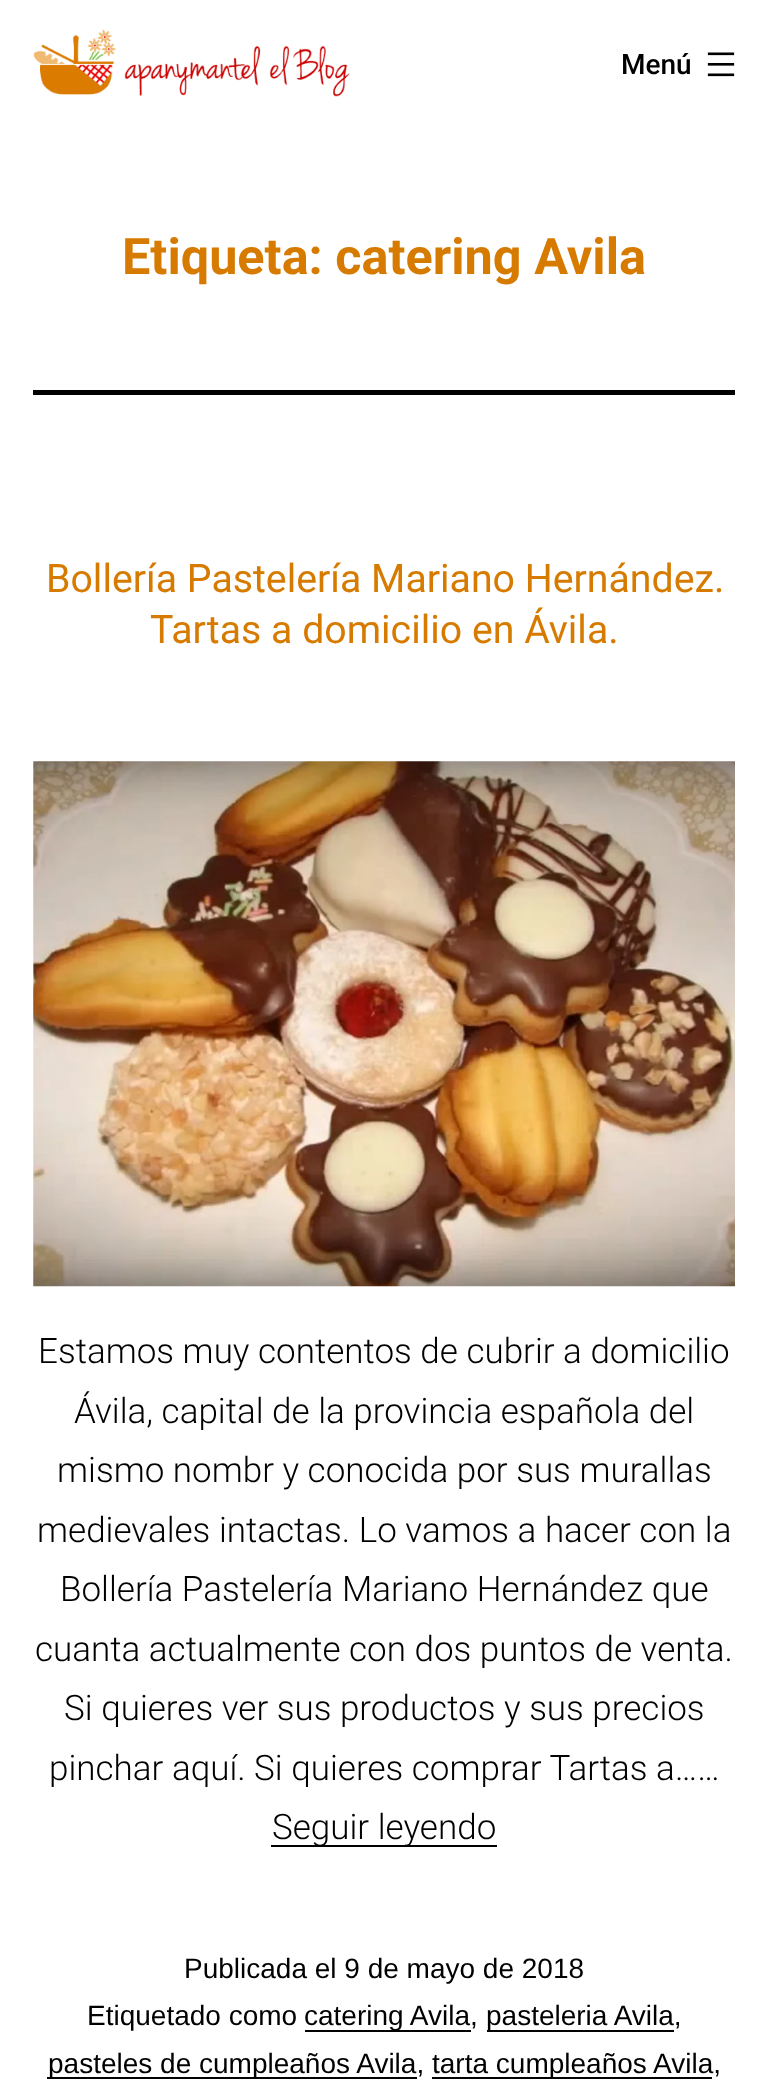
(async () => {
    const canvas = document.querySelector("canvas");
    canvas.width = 768;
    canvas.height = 2095;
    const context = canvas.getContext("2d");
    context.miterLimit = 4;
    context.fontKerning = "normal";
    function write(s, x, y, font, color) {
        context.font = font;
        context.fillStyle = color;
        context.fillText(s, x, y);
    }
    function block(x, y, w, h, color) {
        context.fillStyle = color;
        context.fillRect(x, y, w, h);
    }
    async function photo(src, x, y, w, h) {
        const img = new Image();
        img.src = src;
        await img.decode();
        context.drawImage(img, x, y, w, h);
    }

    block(0, 0, 768, 2095, "rgb(255, 255, 255)");
    await photo("media/1.png", 33, 29, 317, 68);
    write("Menú", 621, 74, "500 28px Roboto", "rgb(0, 0, 0)");
    await photo("media/2.png", 707, 52, 28, 25);
    block(33, 390, 702, 5, "rgb(0, 0, 0)");
    write("Etiqueta: catering Avila", 122, 274, "bold 50.4px Roboto", "rgb(214, 123, 0)");
    write("Bollería Pastelería Mariano Hernández.", 46, 592, "39.25px Roboto", "rgb(214, 123, 0)");
    write("Tartas a domicilio en Ávila.", 150, 643, "39.25px Roboto", "rgb(214, 123, 0)");
    await photo("media/3.png", 33, 761, 702, 526);
    write("Estamos muy contentos de cubrir a domicilio", 38, 1363, "300 35px Roboto", "rgb(0, 0, 0)");
    write("Ávila, capital de la provincia española del", 74, 1423, "300 35px Roboto", "rgb(0, 0, 0)");
    write("mismo nombr y conocida por sus murallas", 57, 1482, "300 35px Roboto", "rgb(0, 0, 0)");
    write("medievales intactas. Lo vamos a hacer con la", 37, 1542, "300 35px Roboto", "rgb(0, 0, 0)");
    write("Bollería Pastelería Mariano Hernández que", 60, 1601, "300 35px Roboto", "rgb(0, 0, 0)");
    write("cuanta actualmente con dos puntos de venta.", 35, 1661, "300 35px Roboto", "rgb(0, 0, 0)");
    write("Si quieres ver sus productos y sus precios", 64, 1720, "300 35px Roboto", "rgb(0, 0, 0)");
    write("pinchar aquí. Si quieres comprar Tartas a……", 49, 1780, "300 35px Roboto", "rgb(0, 0, 0)");
    block(271, 1845, 226, 2, "rgb(0, 0, 0)");
    write("Seguir leyendo", 272, 1839, "300 35px Roboto", "rgb(0, 0, 0)");
    write("Publicada el 9 de mayo de 2018", 184, 1978, "28px Liberation Sans", "rgb(0, 0, 0)");
    write("Etiquetado como", 87, 2025, "28px Liberation Sans", "rgb(0, 0, 0)");
    block(305, 2030, 166, 2, "rgb(0, 0, 0)");
    write("catering Avila,", 304, 2025, "28px Liberation Sans", "rgb(0, 0, 0)");
    block(487, 2030, 187, 2, "rgb(0, 0, 0)");
    write("pasteleria Avila,", 486, 2025, "28px Liberation Sans", "rgb(0, 0, 0)");
    block(47, 2077, 370, 2, "rgb(0, 0, 0)");
    write("pasteles de cumpleaños Avila,", 48, 2073, "28px Liberation Sans", "rgb(0, 0, 0)");
    block(432, 2077, 280, 2, "rgb(0, 0, 0)");
    write("tarta cumpleaños Avila,", 432, 2073, "28px Liberation Sans", "rgb(0, 0, 0)");
})();
